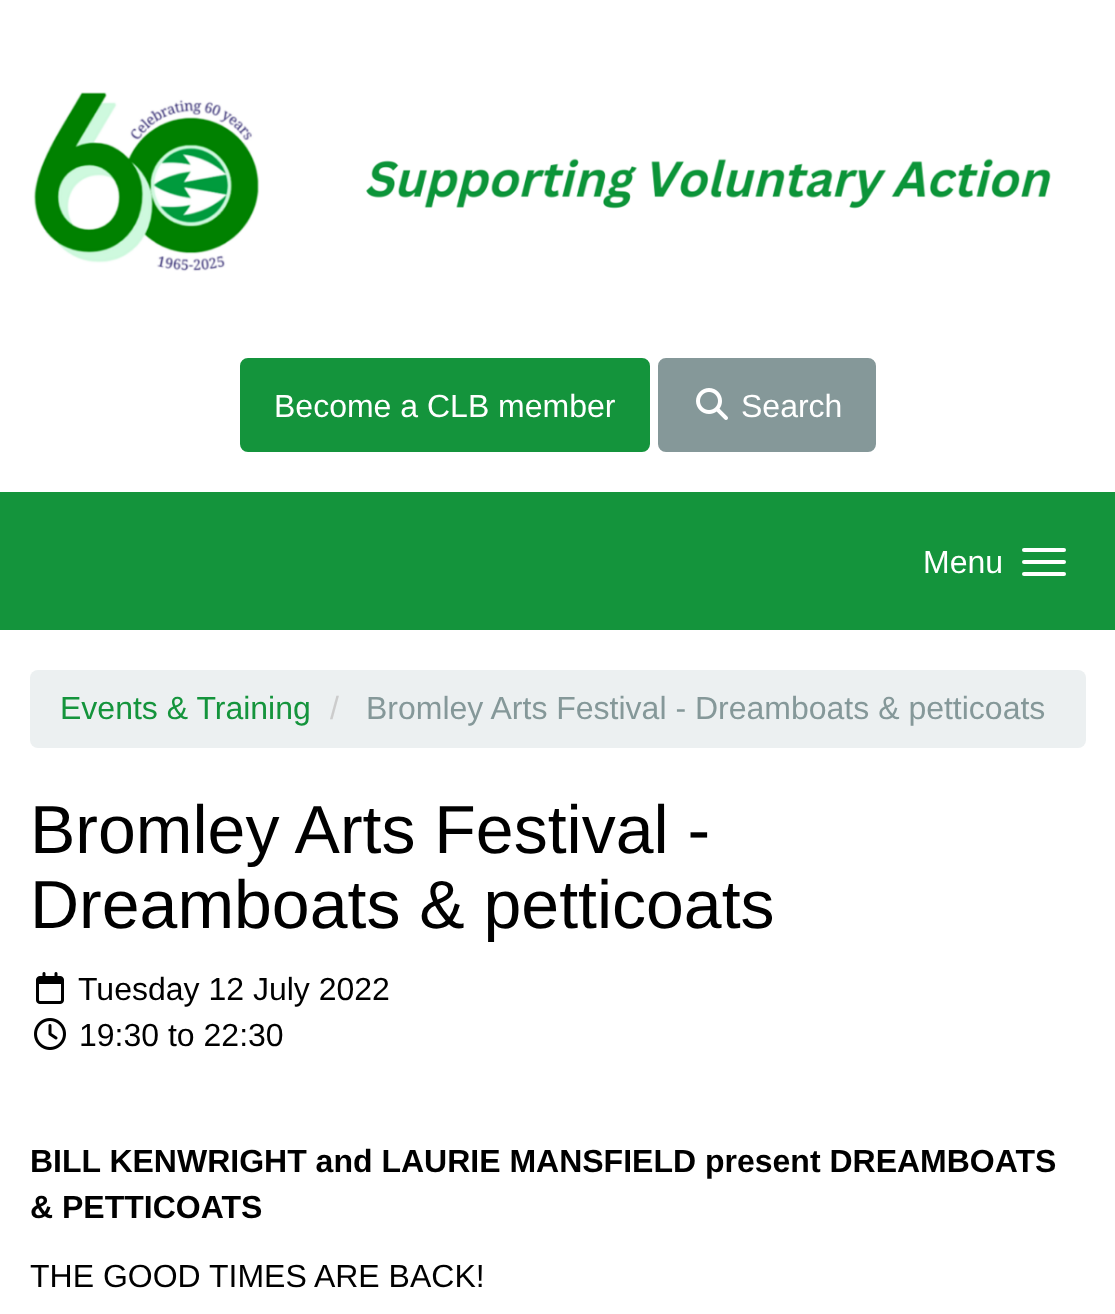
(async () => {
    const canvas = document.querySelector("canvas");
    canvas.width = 1115;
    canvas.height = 1314;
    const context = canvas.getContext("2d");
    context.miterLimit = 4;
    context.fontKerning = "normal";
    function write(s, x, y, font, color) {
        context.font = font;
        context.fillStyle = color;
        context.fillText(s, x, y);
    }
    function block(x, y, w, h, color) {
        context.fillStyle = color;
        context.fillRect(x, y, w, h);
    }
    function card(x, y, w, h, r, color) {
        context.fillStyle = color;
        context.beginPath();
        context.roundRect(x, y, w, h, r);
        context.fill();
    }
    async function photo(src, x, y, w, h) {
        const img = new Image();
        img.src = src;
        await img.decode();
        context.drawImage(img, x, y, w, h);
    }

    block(0, 0, 1115, 1314, "rgb(255, 255, 255)");
    await photo("media/1.png", 33, 92, 1018, 180);
    context.fillStyle = "rgb(20, 148, 60)";
    context.beginPath();
    context.roundRect(242, 360, 406, 90, 6);
    context.fill();
    context.strokeStyle = "rgb(20, 148, 60)";
    context.lineWidth = 4;
    context.stroke();
    write("Become a CLB member", 274, 417, "32px Liberation Sans", "rgb(255, 255, 255)");
    context.fillStyle = "rgb(133, 152, 153)";
    context.beginPath();
    context.roundRect(660, 360, 214, 90, 6);
    context.fill();
    context.strokeStyle = "rgb(133, 152, 153)";
    context.stroke();
    await photo("media/2.png", 696, 388, 32, 32);
    write("Search", 741, 417, "32px Liberation Sans", "rgb(255, 255, 255)");
    block(0, 492, 1115, 138, "rgb(20, 148, 60)");
    write("Menu", 923, 573, "32px Liberation Sans", "rgb(255, 255, 255)");
    card(1022, 548, 44, 4, 2, "rgb(255, 255, 255)");
    card(1022, 560, 44, 4, 2, "rgb(255, 255, 255)");
    card(1022, 572, 44, 4, 2, "rgb(255, 255, 255)");
    card(30, 670, 1056, 78, 8, "rgb(236, 240, 241)");
    write("Events & Training", 60, 719, "32px Liberation Sans", "rgb(20, 148, 60)");
    write("/", 330, 719, "32px Liberation Sans", "rgb(204, 204, 204)");
    write("Bromley Arts Festival - Dreamboats & petticoats", 366, 719, "32px Liberation Sans", "rgb(133, 152, 153)");
    write("Bromley Arts Festival -", 30, 853, "68px Liberation Sans", "rgb(0, 0, 0)");
    write("Dreamboats & petticoats", 30, 928, "68px Liberation Sans", "rgb(0, 0, 0)");
    await photo("media/3.png", 36, 972, 28, 32);
    write("Tuesday 12 July 2022", 78, 1000, "32px Liberation Sans", "rgb(0, 0, 0)");
    await photo("media/4.png", 34, 1018, 32, 32);
    write("19:30 to 22:30", 79, 1046, "32px Liberation Sans", "rgb(0, 0, 0)");
    write("BILL KENWRIGHT and LAURIE MANSFIELD present DREAMBOATS", 30, 1172, "bold 32px Liberation Sans", "rgb(0, 0, 0)");
    write("& PETTICOATS", 30, 1218, "bold 32px Liberation Sans", "rgb(0, 0, 0)");
    write("THE GOOD TIMES ARE BACK!", 30, 1287, "32px Liberation Sans", "rgb(0, 0, 0)");
})();
